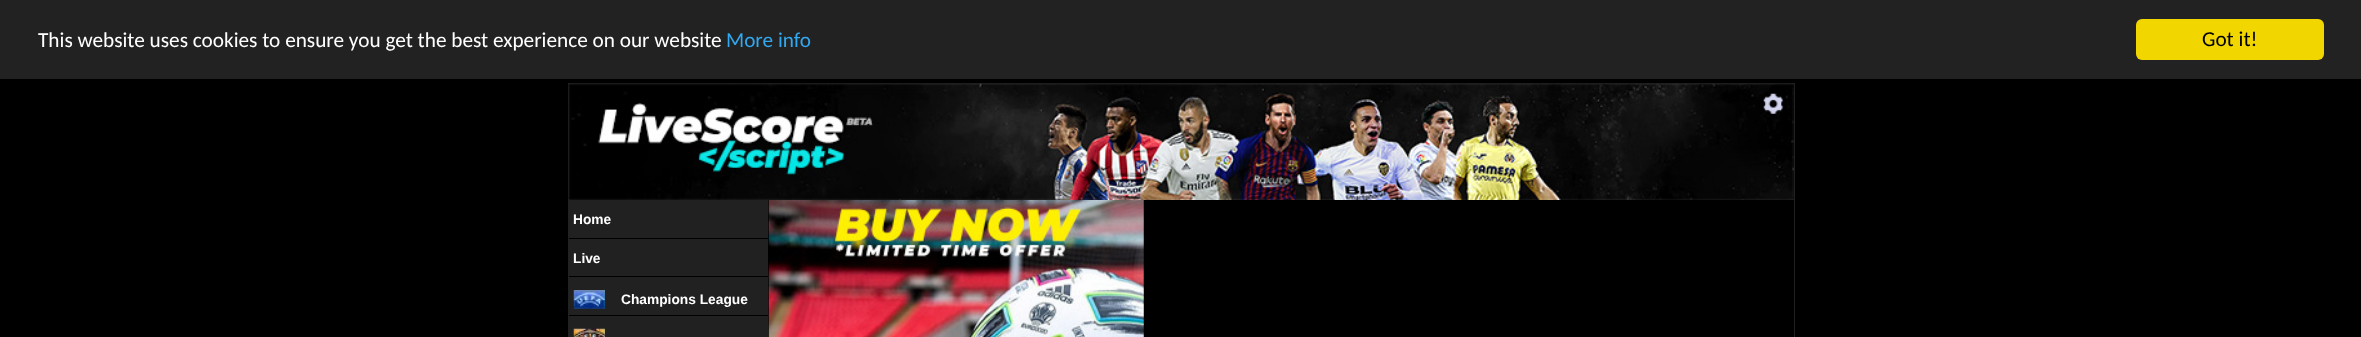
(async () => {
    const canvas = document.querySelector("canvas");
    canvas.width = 2361;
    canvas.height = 337;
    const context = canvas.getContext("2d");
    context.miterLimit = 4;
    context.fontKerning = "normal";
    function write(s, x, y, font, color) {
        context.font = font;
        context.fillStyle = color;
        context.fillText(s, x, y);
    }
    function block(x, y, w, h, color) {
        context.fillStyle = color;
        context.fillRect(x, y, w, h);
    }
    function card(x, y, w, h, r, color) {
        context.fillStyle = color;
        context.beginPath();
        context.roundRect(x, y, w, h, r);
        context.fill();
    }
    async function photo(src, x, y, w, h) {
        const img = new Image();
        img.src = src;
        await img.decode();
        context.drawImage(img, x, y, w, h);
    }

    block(0, 0, 2361, 337, "rgb(0, 0, 0)");
    block(0, 0, 2361, 79, "rgb(34, 34, 34)");
    write("This website uses cookies to ensure you get the best experience on our website", 38, 47, "21.25px Carlito", "rgb(255, 255, 255)");
    write("More info", 726, 47, "21.25px Carlito", "rgb(49, 168, 240)");
    card(2136, 19, 188, 41, 6, "rgb(241, 214, 0)");
    write("Got it!", 2202, 46, "21.25px Carlito", "rgb(0, 0, 0)");
    context.strokeStyle = "rgb(33, 33, 33)";
    context.strokeRect(568.5, 83.5, 1226, 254);
    await photo("media/1.png", 568, 83, 1226, 117);
    await photo("media/2.png", 1763, 93, 21, 21);
    block(569, 200, 199, 137, "rgb(33, 33, 33)");
    block(569, 238, 199, 1, "rgb(0, 0, 0)");
    write("Home", 573, 224, "bold 13.75px Liberation Sans", "rgb(255, 255, 255)");
    block(569, 276, 199, 1, "rgb(0, 0, 0)");
    write("Live", 573, 263, "bold 13.75px Liberation Sans", "rgb(255, 255, 255)");
    block(569, 315, 199, 1, "rgb(0, 0, 0)");
    await photo("media/3.png", 573, 290, 32, 19);
    write("Champions League", 621, 304, "bold 13.75px Liberation Sans", "rgb(255, 255, 255)");
    await photo("media/4.png", 573, 328, 32, 9);
    await photo("media/5.png", 768, 200, 376, 137);
})();
